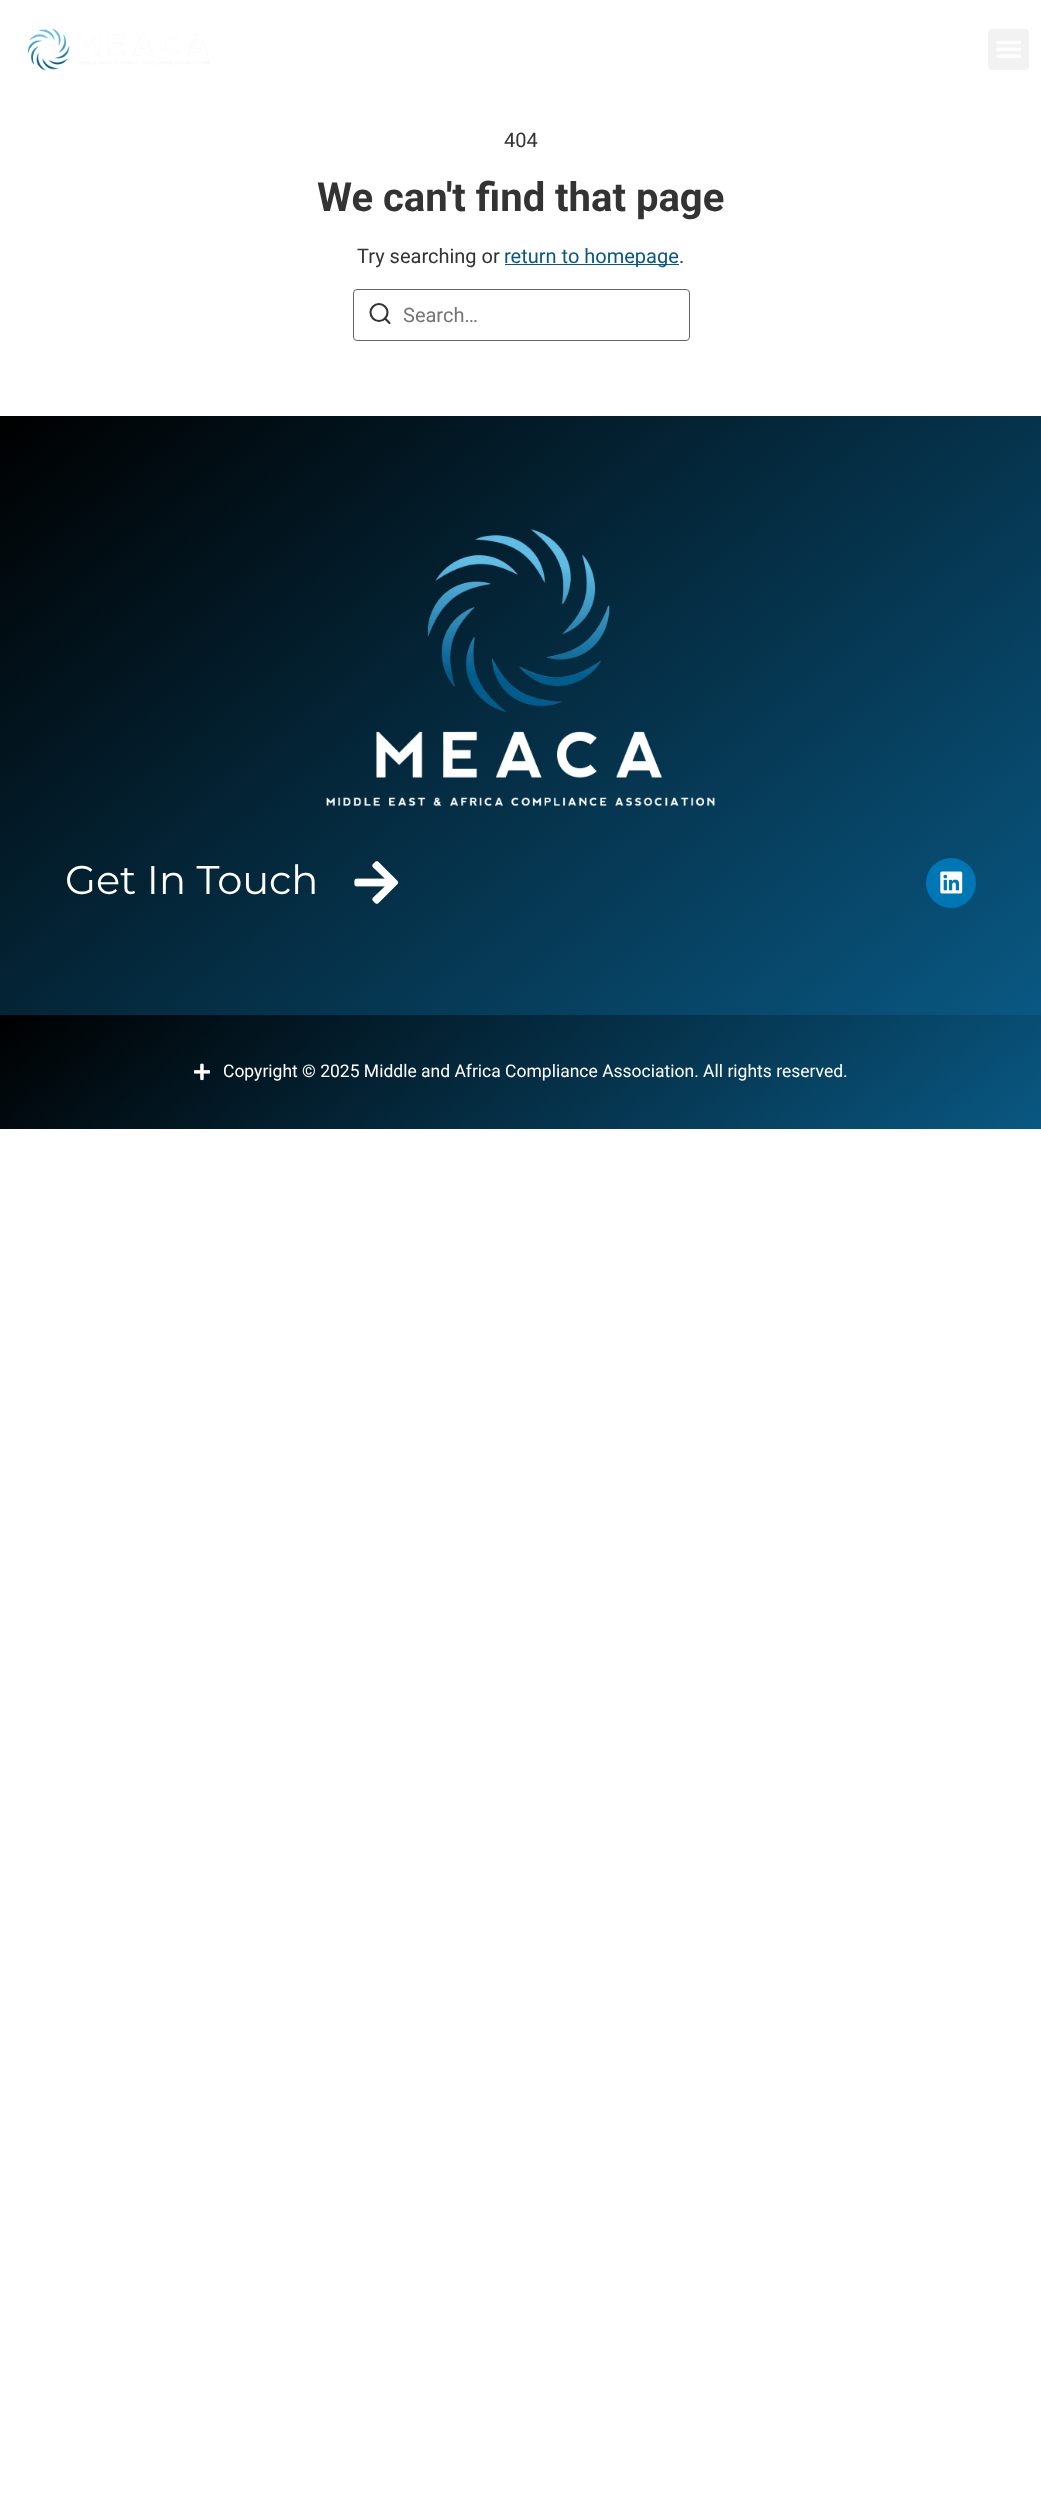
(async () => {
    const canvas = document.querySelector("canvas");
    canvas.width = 1041;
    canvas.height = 2497;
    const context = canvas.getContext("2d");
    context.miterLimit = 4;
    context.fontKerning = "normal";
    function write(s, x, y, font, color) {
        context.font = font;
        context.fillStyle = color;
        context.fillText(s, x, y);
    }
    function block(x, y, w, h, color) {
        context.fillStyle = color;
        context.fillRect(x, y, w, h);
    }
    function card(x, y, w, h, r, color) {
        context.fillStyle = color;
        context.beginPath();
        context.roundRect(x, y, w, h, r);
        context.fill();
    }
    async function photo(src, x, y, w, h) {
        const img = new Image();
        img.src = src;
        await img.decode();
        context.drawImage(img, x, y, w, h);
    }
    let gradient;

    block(0, 0, 1041, 2497, "rgb(255, 255, 255)");
    await photo("media/1.png", 27, 28, 182, 43);
    card(988, 29, 41, 41, 4, "rgb(242, 242, 242)");
    await photo("media/2.png", 996, 41, 25, 17);
    write("404", 504, 147, "20px Roboto", "rgb(51, 51, 51)");
    write("We can't find that page", 317, 211, "bold 40px Roboto", "rgb(51, 51, 51)");
    write("Try searching or", 357, 263, "20px Roboto", "rgb(51, 51, 51)");
    block(505, 264, 174, 1, "rgb(9, 88, 131)");
    write("return to homepage", 504, 263, "20px Roboto", "rgb(9, 88, 131)");
    write(".", 679, 263, "20px Roboto", "rgb(51, 51, 51)");
    context.beginPath();
    context.roundRect(353.5, 289.5, 336, 51, 3.5);
    context.strokeStyle = "rgb(102, 102, 102)";
    context.stroke();
    context.beginPath();
    context.arc(379, 312.5, 8.5, 0, Math.PI * 2);
    context.strokeStyle = "rgb(51, 51, 51)";
    context.lineWidth = 2.1;
    context.stroke();
    context.beginPath();
    context.moveTo(389.5, 323);
    context.lineTo(385, 318.5);
    context.lineCap = "round";
    context.lineJoin = "round";
    context.stroke();
    write("Search…", 403, 322, "20px Roboto", "rgb(117, 117, 117)");
    gradient = context.createLinearGradient(168, 280, 873, 1151);
    gradient.addColorStop(0, "rgb(0, 0, 0)");
    gradient.addColorStop(1, "rgb(9, 88, 131)");
    context.fillStyle = gradient;
    context.fillRect(0, 416, 1041, 599);
    await photo("media/3.png", 326, 529, 389, 278);
    write("Get In Touch", 65, 894, "40px Montserrat", "rgb(255, 255, 255)");
    await photo("media/4.png", 354, 861, 45, 43);
    context.fillStyle = "rgb(0, 119, 181)";
    context.beginPath();
    context.arc(951, 883, 25, 0, Math.PI * 2);
    context.fill();
    await photo("media/5.png", 940, 871, 23, 23);
    gradient = context.createLinearGradient(287, 783, 755, 1361);
    gradient.addColorStop(0, "rgb(0, 0, 0)");
    gradient.addColorStop(1, "rgb(9, 88, 131)");
    context.fillStyle = gradient;
    context.fillRect(0, 1015, 1041, 114);
    await photo("media/6.png", 194, 1063, 16, 18);
    write("Copyright © 2025 Middle and Africa Compliance Association. All rights reserved.", 223, 1077, "17.5px Roboto", "rgb(255, 255, 255)");
})();
